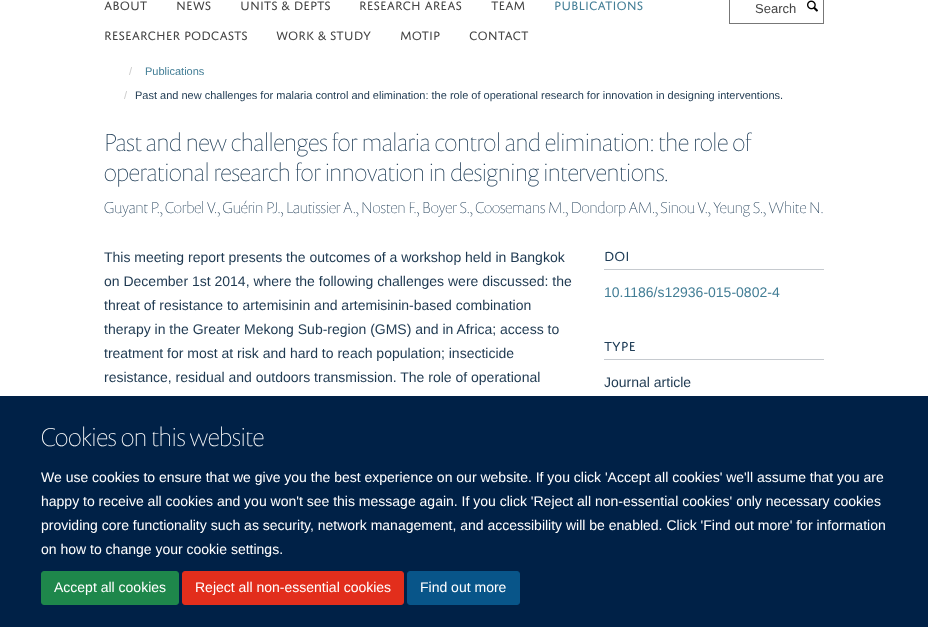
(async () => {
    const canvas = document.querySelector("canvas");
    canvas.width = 928;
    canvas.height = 627;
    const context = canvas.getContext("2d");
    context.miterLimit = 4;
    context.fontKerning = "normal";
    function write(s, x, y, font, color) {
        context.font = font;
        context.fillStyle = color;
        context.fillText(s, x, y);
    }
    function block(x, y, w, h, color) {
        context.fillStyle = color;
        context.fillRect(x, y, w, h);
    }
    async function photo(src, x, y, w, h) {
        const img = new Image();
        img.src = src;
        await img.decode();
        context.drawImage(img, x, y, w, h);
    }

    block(0, 0, 928, 627, "rgb(255, 255, 255)");
    write("ABOUT", 104, 10, "13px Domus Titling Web", "rgb(68, 68, 68)");
    write("NEWS", 176, 10, "13px Domus Titling Web", "rgb(68, 68, 68)");
    write("UNITS & DEPTS", 240, 10, "13px Domus Titling Web", "rgb(68, 68, 68)");
    write("RESEARCH AREAS", 359, 10, "13px Domus Titling Web", "rgb(68, 68, 68)");
    write("TEAM", 491, 10, "13px Domus Titling Web", "rgb(68, 68, 68)");
    write("PUBLICATIONS", 554, 10, "13px Domus Titling Web", "rgb(67, 126, 150)");
    write("RESEARCHER PODCASTS", 104, 40, "13px Domus Titling Web", "rgb(68, 68, 68)");
    write("WORK & STUDY", 276, 40, "13px Domus Titling Web", "rgb(68, 68, 68)");
    write("MOTIP", 400, 40, "13px Domus Titling Web", "rgb(68, 68, 68)");
    write("CONTACT", 469, 40, "13px Domus Titling Web", "rgb(68, 68, 68)");
    context.strokeStyle = "rgb(119, 119, 119)";
    context.strokeRect(729.5, -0.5, 94, 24);
    write("Search", 755, 13, "13px Liberation Sans", "rgb(68, 68, 68)");
    await photo("media/1.png", 807, 0, 11, 12);
    write("/", 129, 75, "11px Liberation Sans", "rgb(204, 204, 204)");
    write("Publications", 145, 75, "11px Liberation Sans", "rgb(67, 126, 150)");
    write("/", 124, 99, "11px Liberation Sans", "rgb(204, 204, 204)");
    write("Past and new challenges for malaria control and elimination: the role of operational research for innovation in designing interventions.", 135, 99, "11px Liberation Sans", "rgb(29, 56, 80)");
    write("Past and new challenges for malaria control and elimination: the role of", 104, 151, "100 25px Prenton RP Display", "rgb(32, 62, 88)");
    write("operational research for innovation in designing interventions.", 104, 181, "100 25px Prenton RP Display", "rgb(32, 62, 88)");
    write("Guyant P., Corbel V., Guérin PJ., Lautissier A., Nosten F., Boyer S., Coosemans M., Dondorp AM., Sinou V., Yeung S., White N.", 104, 213, "100 16px Prenton RP Display", "rgb(32, 62, 88)");
    write("This meeting report presents the outcomes of a workshop held in Bangkok", 104, 262, "14px Liberation Sans", "rgb(29, 56, 80)");
    write("on December 1st 2014, where the following challenges were discussed: the", 104, 286, "14px Liberation Sans", "rgb(29, 56, 80)");
    write("threat of resistance to artemisinin and artemisinin-based combination", 104, 310, "14px Liberation Sans", "rgb(29, 56, 80)");
    write("therapy in the Greater Mekong Sub-region (GMS) and in Africa; access to", 104, 334, "14px Liberation Sans", "rgb(29, 56, 80)");
    write("treatment for most at risk and hard to reach population; insecticide", 104, 358, "14px Liberation Sans", "rgb(29, 56, 80)");
    write("resistance, residual and outdoors transmission. The role of operational", 104, 382, "14px Liberation Sans", "rgb(29, 56, 80)");
    block(604, 269, 220, 1, "rgb(198, 202, 207)");
    write("DOI", 604, 261, "14px Domus Titling Web", "rgb(32, 62, 88)");
    write("10.1186/s12936-015-0802-4", 604, 297, "14px Liberation Sans", "rgb(67, 126, 150)");
    block(604, 359, 220, 1, "rgb(198, 202, 207)");
    write("TYPE", 604, 351, "14px Domus Titling Web", "rgb(32, 62, 88)");
    write("Journal article", 604, 387, "14px Liberation Sans", "rgb(29, 56, 80)");
    block(0, 396, 928, 231, "rgb(0, 33, 71)");
    write("Cookies on this website", 41, 446, "100 26px Prenton RP Display", "rgb(255, 255, 255)");
    write("We use cookies to ensure that we give you the best experience on our website. If you click 'Accept all cookies' we'll assume that you are", 41, 482, "14px Liberation Sans", "rgb(255, 255, 255)");
    write("happy to receive all cookies and you won't see this message again. If you click 'Reject all non-essential cookies' only necessary cookies", 41, 506, "14px Liberation Sans", "rgb(255, 255, 255)");
    write("providing core functionality such as security, network management, and accessibility will be enabled. Click 'Find out more' for information", 41, 530, "14px Liberation Sans", "rgb(255, 255, 255)");
    write("on how to change your cookie settings.", 41, 554, "14px Liberation Sans", "rgb(255, 255, 255)");
    context.fillStyle = "rgb(30, 135, 75)";
    context.beginPath();
    context.roundRect(41.5, 571.5, 137, 33, 2.5);
    context.fill();
    context.strokeStyle = "rgb(30, 135, 75)";
    context.stroke();
    write("Accept all cookies", 54, 592, "14px Liberation Sans", "rgb(255, 255, 255)");
    context.fillStyle = "rgb(226, 46, 28)";
    context.beginPath();
    context.roundRect(182.5, 571.5, 221, 33, 2.5);
    context.fill();
    context.strokeStyle = "rgb(226, 46, 28)";
    context.stroke();
    write("Reject all non-essential cookies", 195, 592, "14px Liberation Sans", "rgb(255, 255, 255)");
    context.fillStyle = "rgb(8, 85, 137)";
    context.beginPath();
    context.roundRect(407.5, 571.5, 112, 33, 2.5);
    context.fill();
    context.strokeStyle = "rgb(8, 85, 137)";
    context.stroke();
    write("Find out more", 420, 592, "14px Liberation Sans", "rgb(255, 255, 255)");
})();
